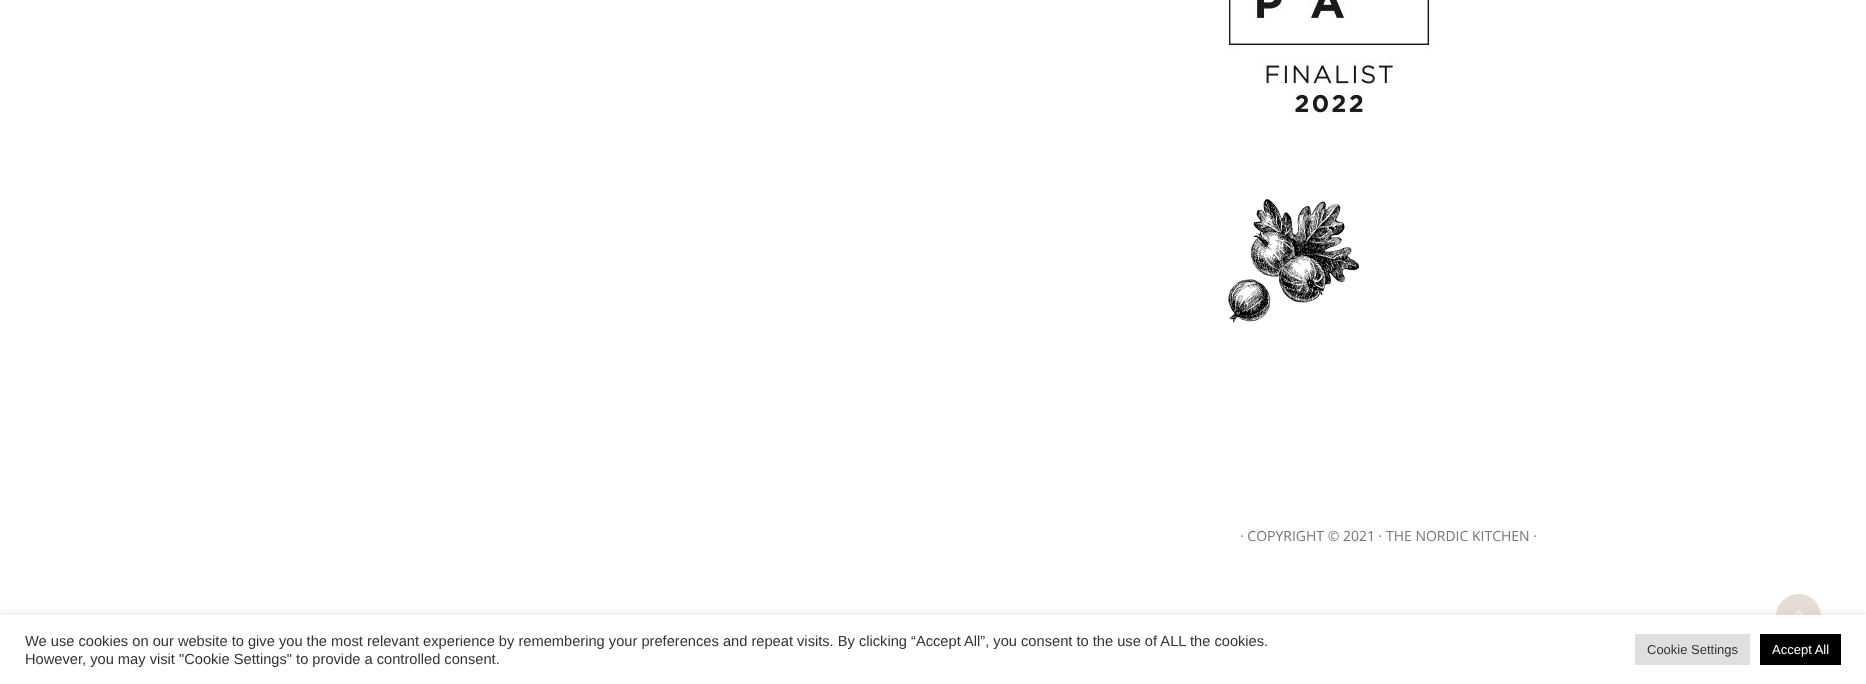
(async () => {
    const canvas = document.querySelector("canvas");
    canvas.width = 1866;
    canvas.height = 684;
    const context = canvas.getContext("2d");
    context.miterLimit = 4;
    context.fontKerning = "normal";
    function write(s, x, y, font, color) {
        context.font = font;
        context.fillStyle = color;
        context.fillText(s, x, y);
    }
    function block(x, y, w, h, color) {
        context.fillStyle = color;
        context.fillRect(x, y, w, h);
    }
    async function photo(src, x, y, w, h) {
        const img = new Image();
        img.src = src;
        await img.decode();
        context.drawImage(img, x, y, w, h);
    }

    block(0, 0, 1866, 684, "rgb(255, 255, 255)");
    await photo("media/1.png", 1227, 0, 208, 115);
    await photo("media/2.png", 1228, 199, 131, 124);
    write("· COPYRIGHT © 2021 · THE NORDIC KITCHEN ·", 1240, 541, "14px Open Sans", "rgb(117, 117, 117)");
    context.fillStyle = "rgb(232, 221, 212)";
    context.beginPath();
    context.arc(1798.5, 616.5, 22.5, 0, Math.PI * 2);
    context.fill();
    await photo("media/3.png", 1793, 610, 11, 5);
    context.fillStyle = "rgba(172, 171, 171, 0.3)";
    context.filter = "blur(5px)";
    context.beginPath();
    context.rect(0, 614, 1866, 69);
    context.fill();
    context.filter = "none";
    block(0, 615, 1866, 69, "rgb(255, 255, 255)");
    write("We use cookies on our website to give you the most relevant experience by remembering your preferences and repeat visits. By clicking “Accept All”, you consent to the use of ALL the cookies.", 25, 646, "14.67px Liberation Sans", "rgb(51, 51, 51)");
    write("However, you may visit \"Cookie Settings\" to provide a controlled consent.", 25, 664, "14.67px Liberation Sans", "rgb(51, 51, 51)");
    block(1635, 634, 115, 31, "rgb(222, 223, 224)");
    write("Cookie Settings", 1647, 654, "13px Liberation Sans", "rgb(51, 51, 51)");
    block(1760, 634, 81, 31, "rgb(0, 0, 0)");
    write("Accept All", 1772, 654, "13px Liberation Sans", "rgb(255, 255, 255)");
})();
